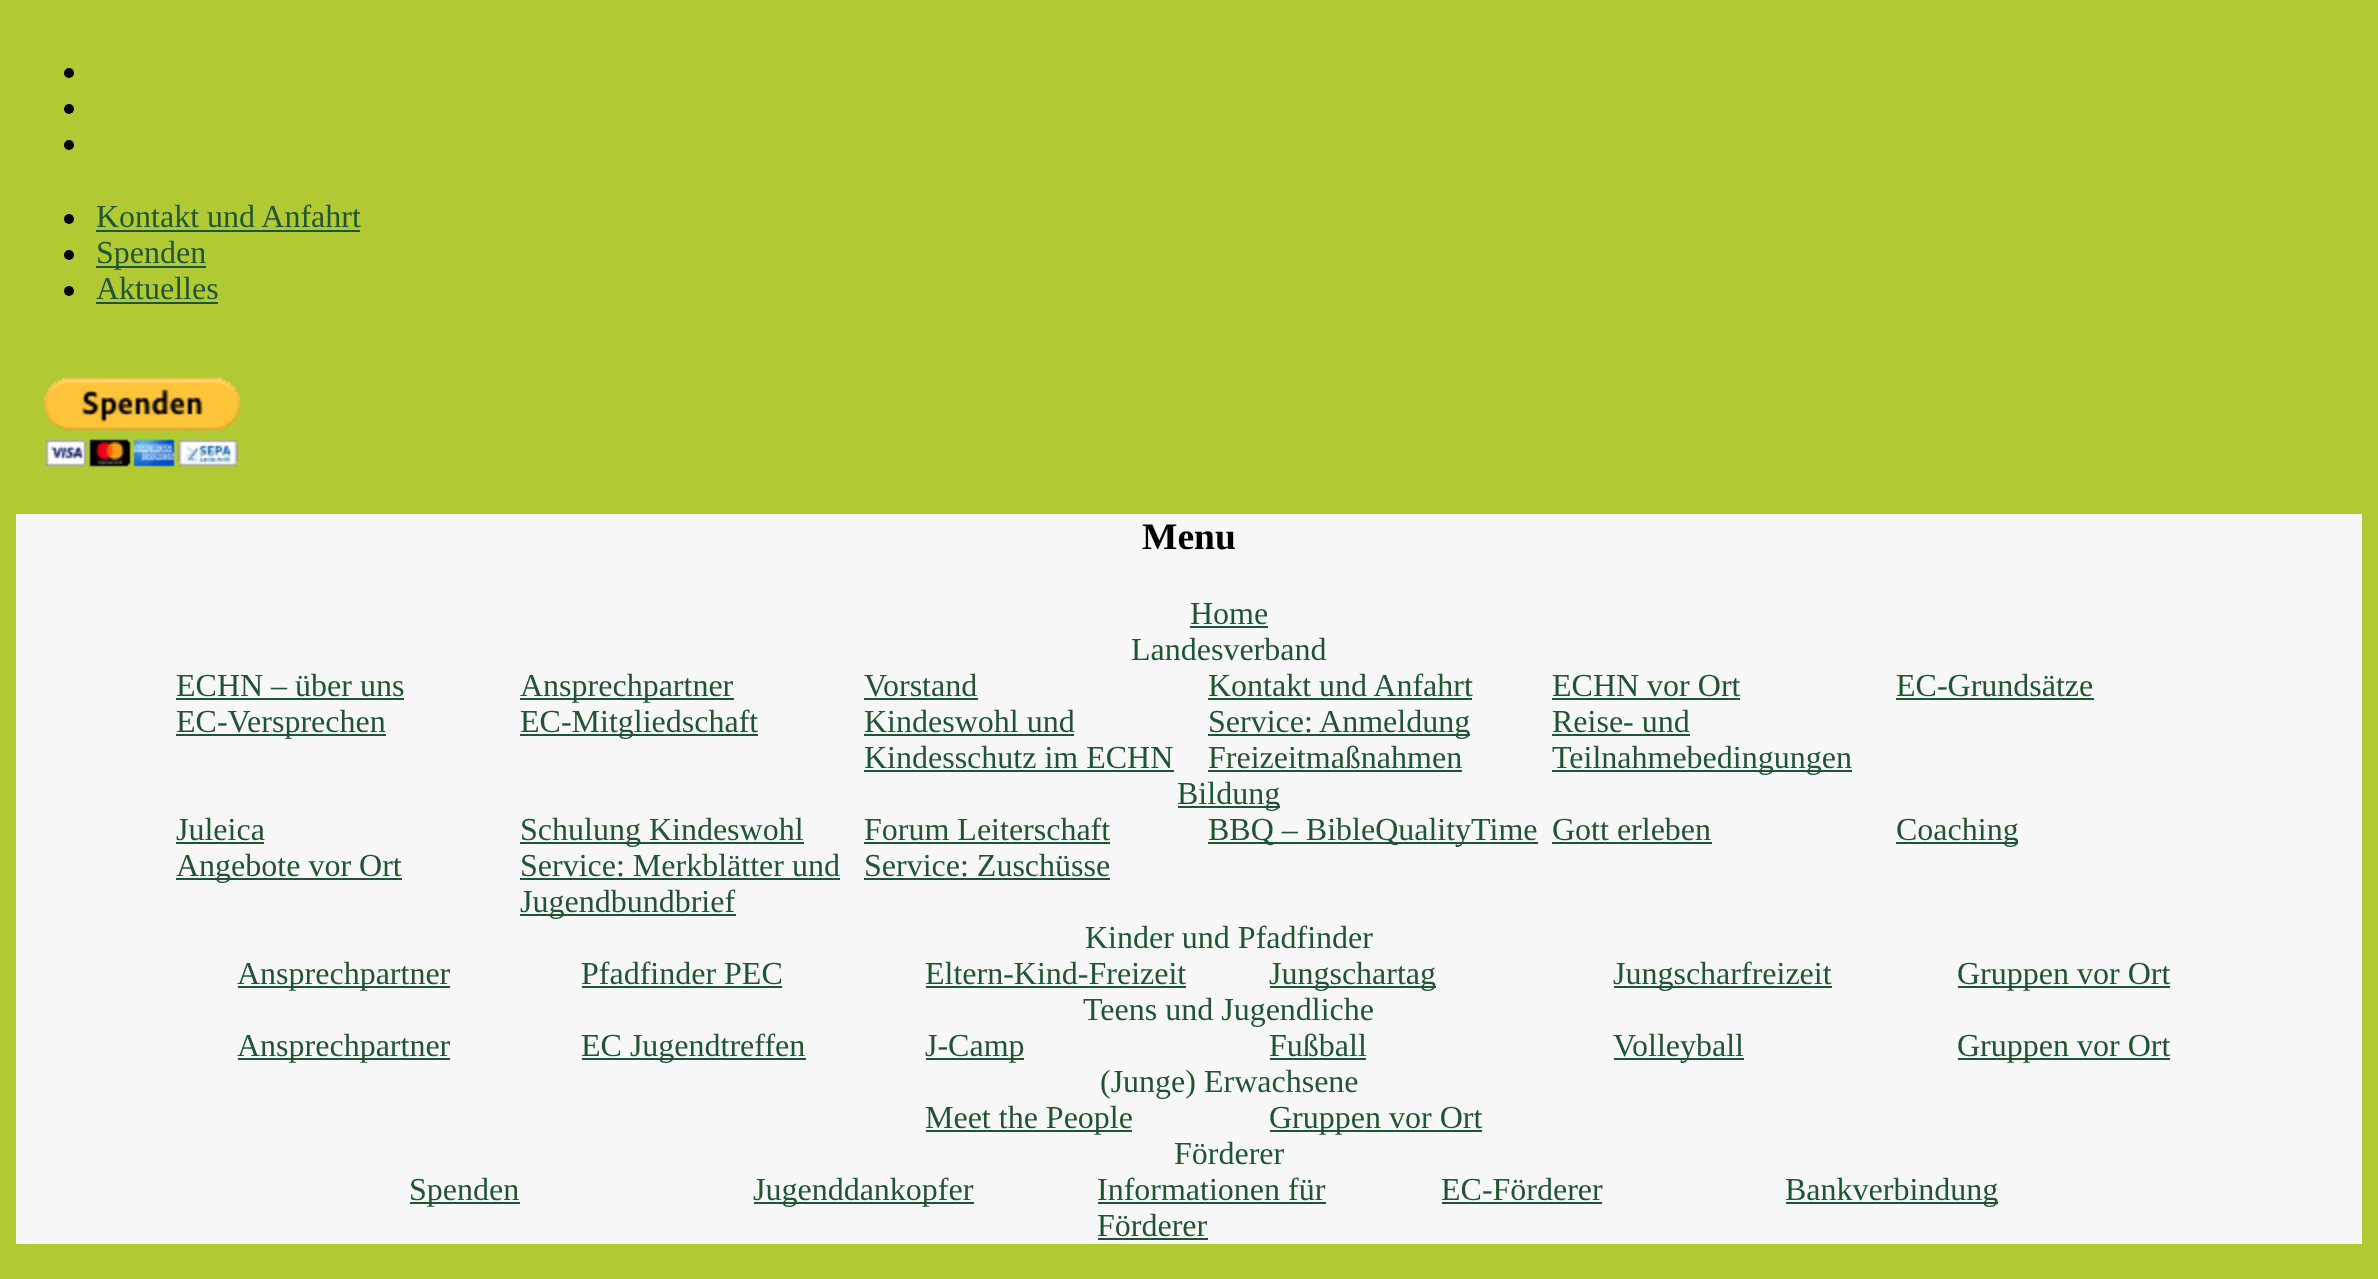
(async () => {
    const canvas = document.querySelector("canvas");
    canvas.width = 2378;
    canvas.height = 1279;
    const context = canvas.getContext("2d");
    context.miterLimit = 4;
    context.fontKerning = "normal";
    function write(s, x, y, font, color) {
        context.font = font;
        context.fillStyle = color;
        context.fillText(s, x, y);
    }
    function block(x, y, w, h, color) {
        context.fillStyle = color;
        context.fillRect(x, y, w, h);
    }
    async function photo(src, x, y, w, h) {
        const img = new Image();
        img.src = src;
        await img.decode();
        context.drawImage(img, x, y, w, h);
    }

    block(0, 0, 2378, 1279, "rgb(177, 202, 52)");
    context.fillStyle = "rgb(0, 0, 0)";
    context.beginPath();
    context.arc(69, 73, 5, 0, Math.PI * 2);
    context.fill();
    context.beginPath();
    context.arc(69, 109, 5, 0, Math.PI * 2);
    context.fill();
    context.beginPath();
    context.arc(69, 145, 5, 0, Math.PI * 2);
    context.fill();
    context.beginPath();
    context.arc(69, 219, 5, 0, Math.PI * 2);
    context.fill();
    write("Kontakt und Anfahrt", 96, 227, "32px Liberation Serif", "rgb(31, 85, 51)");
    block(96, 230, 264, 2, "rgb(31, 85, 51)");
    context.fillStyle = "rgb(0, 0, 0)";
    context.beginPath();
    context.arc(69, 255, 5, 0, Math.PI * 2);
    context.fill();
    block(96, 266, 110, 2, "rgb(31, 85, 51)");
    write("Spenden", 96, 263, "32px Liberation Serif", "rgb(31, 85, 51)");
    context.fillStyle = "rgb(0, 0, 0)";
    context.beginPath();
    context.arc(69, 291, 5, 0, Math.PI * 2);
    context.fill();
    write("Aktuelles", 96, 299, "32px Liberation Serif", "rgb(31, 85, 51)");
    block(96, 302, 122, 2, "rgb(31, 85, 51)");
    await photo("media/1.png", 43, 377, 198, 90);
    block(16, 514, 2346, 730, "rgb(248, 248, 248)");
    write("Menu", 1142, 549, "bold 37.5px Liberation Serif", "rgb(0, 0, 0)");
    write("Home", 1190, 624, "32px Liberation Serif", "rgb(31, 85, 51)");
    block(1190, 626, 78, 2, "rgb(31, 85, 51)");
    write("Landesverband", 1131, 660, "32px Liberation Serif", "rgb(31, 85, 51)");
    write("ECHN – über uns", 176, 696, "32px Liberation Serif", "rgb(31, 85, 51)");
    block(176, 698, 228, 2, "rgb(31, 85, 51)");
    block(520, 698, 214, 2, "rgb(31, 85, 51)");
    write("Ansprechpartner", 520, 696, "32px Liberation Serif", "rgb(31, 85, 51)");
    write("Vorstand", 864, 696, "32px Liberation Serif", "rgb(31, 85, 51)");
    block(864, 698, 114, 2, "rgb(31, 85, 51)");
    write("Kontakt und Anfahrt", 1208, 696, "32px Liberation Serif", "rgb(31, 85, 51)");
    block(1208, 698, 264, 2, "rgb(31, 85, 51)");
    write("ECHN vor Ort", 1552, 696, "32px Liberation Serif", "rgb(31, 85, 51)");
    block(1552, 698, 188, 2, "rgb(31, 85, 51)");
    write("EC-Grundsätze", 1896, 696, "32px Liberation Serif", "rgb(31, 85, 51)");
    block(1896, 698, 198, 2, "rgb(31, 85, 51)");
    block(176, 734, 210, 2, "rgb(31, 85, 51)");
    write("EC-Versprechen", 176, 732, "32px Liberation Serif", "rgb(31, 85, 51)");
    block(520, 734, 238, 2, "rgb(31, 85, 51)");
    write("EC-Mitgliedschaft", 520, 732, "32px Liberation Serif", "rgb(31, 85, 51)");
    write("Kindeswohl und", 864, 732, "32px Liberation Serif", "rgb(31, 85, 51)");
    block(864, 734, 210, 2, "rgb(31, 85, 51)");
    write("Kindesschutz im ECHN", 864, 768, "32px Liberation Serif", "rgb(31, 85, 51)");
    block(864, 770, 310, 2, "rgb(31, 85, 51)");
    block(1208, 734, 262, 2, "rgb(31, 85, 51)");
    write("Service: Anmeldung", 1208, 732, "32px Liberation Serif", "rgb(31, 85, 51)");
    write("Freizeitmaßnahmen", 1208, 768, "32px Liberation Serif", "rgb(31, 85, 51)");
    block(1208, 770, 254, 2, "rgb(31, 85, 51)");
    write("Reise- und", 1552, 732, "32px Liberation Serif", "rgb(31, 85, 51)");
    block(1552, 734, 138, 2, "rgb(31, 85, 51)");
    block(1552, 770, 300, 2, "rgb(31, 85, 51)");
    write("Teilnahmebedingungen", 1552, 768, "32px Liberation Serif", "rgb(31, 85, 51)");
    block(1178, 806, 102, 2, "rgb(31, 85, 51)");
    write("Bildung", 1177, 804, "32px Liberation Serif", "rgb(31, 85, 51)");
    write("Juleica", 176, 840, "32px Liberation Serif", "rgb(31, 85, 51)");
    block(176, 842, 88, 2, "rgb(31, 85, 51)");
    block(520, 842, 284, 2, "rgb(31, 85, 51)");
    write("Schulung Kindeswohl", 520, 840, "32px Liberation Serif", "rgb(31, 85, 51)");
    write("Forum Leiterschaft", 864, 840, "32px Liberation Serif", "rgb(31, 85, 51)");
    block(864, 842, 246, 2, "rgb(31, 85, 51)");
    block(1208, 842, 330, 2, "rgb(31, 85, 51)");
    write("BBQ – BibleQualityTime", 1208, 840, "32px Liberation Serif", "rgb(31, 85, 51)");
    write("Gott erleben", 1552, 840, "32px Liberation Serif", "rgb(31, 85, 51)");
    block(1552, 842, 160, 2, "rgb(31, 85, 51)");
    block(1896, 842, 122, 2, "rgb(31, 85, 51)");
    write("Coaching", 1896, 840, "32px Liberation Serif", "rgb(31, 85, 51)");
    block(176, 878, 226, 2, "rgb(31, 85, 51)");
    write("Angebote vor Ort", 176, 876, "32px Liberation Serif", "rgb(31, 85, 51)");
    write("Service: Merkblätter und", 520, 876, "32px Liberation Serif", "rgb(31, 85, 51)");
    block(520, 878, 320, 2, "rgb(31, 85, 51)");
    block(520, 914, 216, 2, "rgb(31, 85, 51)");
    write("Jugendbundbrief", 520, 912, "32px Liberation Serif", "rgb(31, 85, 51)");
    write("Service: Zuschüsse", 864, 876, "32px Liberation Serif", "rgb(31, 85, 51)");
    block(864, 878, 246, 2, "rgb(31, 85, 51)");
    write("Kinder und Pfadfinder", 1085, 948, "32px Liberation Serif", "rgb(31, 85, 51)");
    block(238, 986, 212, 2, "rgb(31, 85, 51)");
    write("Ansprechpartner", 237, 984, "32px Liberation Serif", "rgb(31, 85, 51)");
    write("Pfadfinder PEC", 581, 984, "32px Liberation Serif", "rgb(31, 85, 51)");
    block(582, 986, 200, 2, "rgb(31, 85, 51)");
    write("Eltern-Kind-Freizeit", 925, 984, "32px Liberation Serif", "rgb(31, 85, 51)");
    block(926, 986, 260, 2, "rgb(31, 85, 51)");
    block(1270, 986, 166, 2, "rgb(31, 85, 51)");
    write("Jungschartag", 1269, 984, "32px Liberation Serif", "rgb(31, 85, 51)");
    block(1614, 986, 218, 2, "rgb(31, 85, 51)");
    write("Jungscharfreizeit", 1613, 984, "32px Liberation Serif", "rgb(31, 85, 51)");
    block(1958, 986, 212, 2, "rgb(31, 85, 51)");
    write("Gruppen vor Ort", 1957, 984, "32px Liberation Serif", "rgb(31, 85, 51)");
    write("Teens und Jugendliche", 1083, 1020, "32px Liberation Serif", "rgb(31, 85, 51)");
    block(238, 1058, 212, 2, "rgb(31, 85, 51)");
    write("Ansprechpartner", 237, 1056, "32px Liberation Serif", "rgb(31, 85, 51)");
    block(582, 1058, 224, 2, "rgb(31, 85, 51)");
    write("EC Jugendtreffen", 581, 1056, "32px Liberation Serif", "rgb(31, 85, 51)");
    block(926, 1058, 98, 2, "rgb(31, 85, 51)");
    write("J-Camp", 925, 1056, "32px Liberation Serif", "rgb(31, 85, 51)");
    write("Fußball", 1269, 1056, "32px Liberation Serif", "rgb(31, 85, 51)");
    block(1270, 1058, 96, 2, "rgb(31, 85, 51)");
    block(1614, 1058, 130, 2, "rgb(31, 85, 51)");
    write("Volleyball", 1613, 1056, "32px Liberation Serif", "rgb(31, 85, 51)");
    block(1958, 1058, 212, 2, "rgb(31, 85, 51)");
    write("Gruppen vor Ort", 1957, 1056, "32px Liberation Serif", "rgb(31, 85, 51)");
    write("(Junge) Erwachsene", 1100, 1092, "32px Liberation Serif", "rgb(31, 85, 51)");
    block(926, 1130, 206, 2, "rgb(31, 85, 51)");
    write("Meet the People", 925, 1128, "32px Liberation Serif", "rgb(31, 85, 51)");
    block(1270, 1130, 212, 2, "rgb(31, 85, 51)");
    write("Gruppen vor Ort", 1269, 1128, "32px Liberation Serif", "rgb(31, 85, 51)");
    write("Förderer", 1174, 1164, "32px Liberation Serif", "rgb(31, 85, 51)");
    block(410, 1202, 110, 2, "rgb(31, 85, 51)");
    write("Spenden", 409, 1200, "32px Liberation Serif", "rgb(31, 85, 51)");
    block(754, 1202, 220, 2, "rgb(31, 85, 51)");
    write("Jugenddankopfer", 753, 1200, "32px Liberation Serif", "rgb(31, 85, 51)");
    write("Informationen für", 1097, 1200, "32px Liberation Serif", "rgb(31, 85, 51)");
    block(1098, 1202, 228, 2, "rgb(31, 85, 51)");
    write("Förderer", 1097, 1236, "32px Liberation Serif", "rgb(31, 85, 51)");
    block(1098, 1238, 110, 2, "rgb(31, 85, 51)");
    write("EC-Förderer", 1441, 1200, "32px Liberation Serif", "rgb(31, 85, 51)");
    block(1442, 1202, 160, 2, "rgb(31, 85, 51)");
    block(1786, 1202, 212, 2, "rgb(31, 85, 51)");
    write("Bankverbindung", 1785, 1200, "32px Liberation Serif", "rgb(31, 85, 51)");
})();
